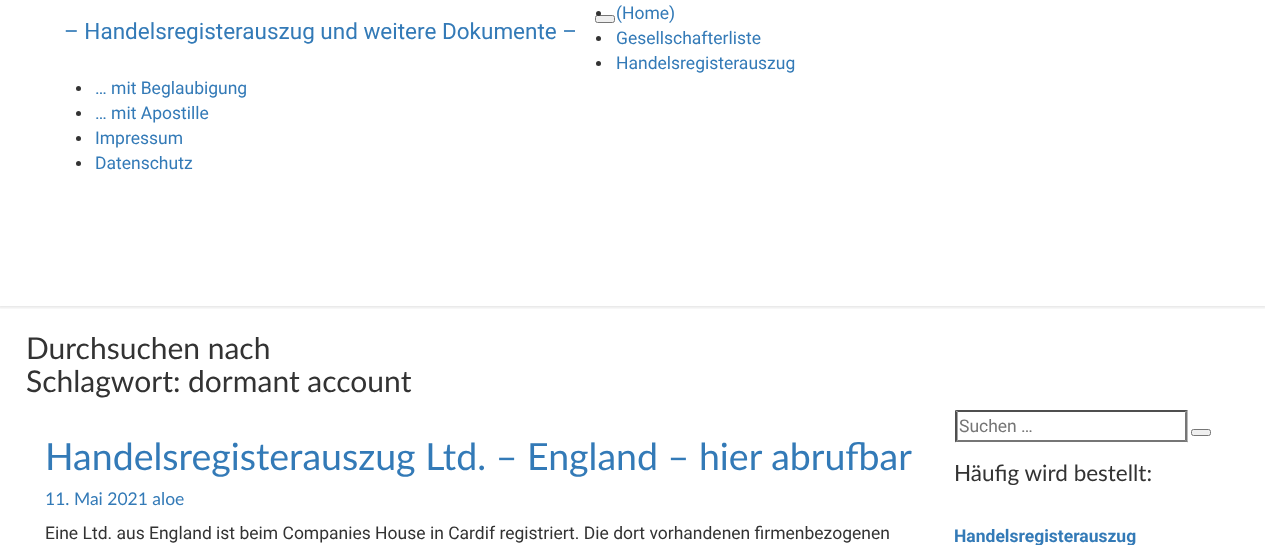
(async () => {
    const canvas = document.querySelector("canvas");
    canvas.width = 1265;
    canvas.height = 545;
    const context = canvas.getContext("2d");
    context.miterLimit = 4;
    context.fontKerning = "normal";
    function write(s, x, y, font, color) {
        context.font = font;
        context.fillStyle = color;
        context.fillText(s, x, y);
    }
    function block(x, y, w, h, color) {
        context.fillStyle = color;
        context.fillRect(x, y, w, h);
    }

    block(0, 0, 1265, 545, "rgb(255, 255, 255)");
    context.save();
    context.beginPath();
    context.rect(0, 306, 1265, 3);
    context.clip();
    context.fillStyle = "rgba(182, 182, 182, 0.3)";
    context.filter = "blur(1px)";
    context.beginPath();
    context.rect(-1, -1, 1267, 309);
    context.fill();
    context.filter = "none";
    context.restore();
    context.fillStyle = "rgb(239, 239, 239)";
    context.beginPath();
    context.roundRect(595.5, 15.5, 19, 7, 2);
    context.fill();
    context.strokeStyle = "rgb(118, 118, 118)";
    context.stroke();
    context.fillStyle = "rgb(51, 51, 51)";
    context.beginPath();
    context.arc(598.5, 13.5, 2.5, 0, Math.PI * 2);
    context.fill();
    write("(Home)", 616, 19, "17.5px Roboto", "rgb(51, 122, 183)");
    context.fillStyle = "rgb(51, 51, 51)";
    context.beginPath();
    context.arc(598.5, 38.5, 2.5, 0, Math.PI * 2);
    context.fill();
    write("Gesellschafterliste", 616, 44, "17.5px Roboto", "rgb(51, 122, 183)");
    context.fillStyle = "rgb(51, 51, 51)";
    context.beginPath();
    context.arc(598.5, 63.5, 2.5, 0, Math.PI * 2);
    context.fill();
    write("Handelsregisterauszug", 616, 69, "17.5px Roboto", "rgb(51, 122, 183)");
    context.fillStyle = "rgb(51, 51, 51)";
    context.beginPath();
    context.arc(78.5, 88.5, 2.5, 0, Math.PI * 2);
    context.fill();
    write("… mit Beglaubigung", 95, 94, "17.5px Roboto", "rgb(51, 122, 183)");
    context.fillStyle = "rgb(51, 51, 51)";
    context.beginPath();
    context.arc(78.5, 113.5, 2.5, 0, Math.PI * 2);
    context.fill();
    write("… mit Apostille", 95, 119, "17.5px Roboto", "rgb(51, 122, 183)");
    context.fillStyle = "rgb(51, 51, 51)";
    context.beginPath();
    context.arc(78.5, 138.5, 2.5, 0, Math.PI * 2);
    context.fill();
    write("Impressum", 95, 144, "17.5px Roboto", "rgb(51, 122, 183)");
    context.fillStyle = "rgb(51, 51, 51)";
    context.beginPath();
    context.arc(78.5, 163.5, 2.5, 0, Math.PI * 2);
    context.fill();
    write("Datenschutz", 95, 169, "17.5px Roboto", "rgb(51, 122, 183)");
    write("– Handelsregisterauszug und weitere Dokumente –", 64, 39, "22.5px Roboto", "rgb(51, 122, 183)");
    write("Durchsuchen nach", 26, 359, "30px Lato", "rgb(51, 51, 51)");
    write("Schlagwort: dormant account", 26, 392, "30px Lato", "rgb(51, 51, 51)");
    write("Handelsregisterauszug Ltd. – England – hier abrufbar", 45, 470, "37.5px Lato", "rgb(51, 122, 183)");
    write("11. Mai 2021 aloe", 45, 505, "17.5px Lato", "rgb(51, 122, 183)");
    write("Eine Ltd. aus England ist beim Companies House in Cardif registriert. Die dort vorhandenen firmenbezogenen", 45, 539, "17.5px Roboto", "rgb(51, 51, 51)");
    context.fillStyle = "rgb(79, 79, 79)";
    context.beginPath();
    context.moveTo(955, 410);
    context.lineTo(1188, 410);
    context.lineTo(1185, 412);
    context.lineTo(958, 412);
    context.closePath();
    context.fill();
    context.fillStyle = "rgb(118, 118, 118)";
    context.beginPath();
    context.moveTo(1187.5, 410);
    context.lineTo(1187.5, 442.5);
    context.lineTo(1185, 440);
    context.lineTo(1185, 412.5);
    context.closePath();
    context.fill();
    context.beginPath();
    context.moveTo(1188, 442);
    context.lineTo(955, 442);
    context.lineTo(958, 440);
    context.lineTo(1185, 440);
    context.closePath();
    context.fill();
    context.fillStyle = "rgb(79, 79, 79)";
    context.beginPath();
    context.moveTo(955, 442.5);
    context.lineTo(955, 410);
    context.lineTo(957.5, 412.5);
    context.lineTo(957.5, 440);
    context.closePath();
    context.fill();
    write("Suchen …", 959, 432, "17.5px Roboto", "rgb(117, 117, 117)");
    context.fillStyle = "rgb(239, 239, 239)";
    context.beginPath();
    context.roundRect(1191.5, 429.5, 19, 6, 2);
    context.fill();
    context.stroke();
    write("Häufig wird bestellt:", 954, 481, "22.5px Lato", "rgb(51, 51, 51)");
    write("Handelsregisterauszug", 954, 542, "bold 17.5px Roboto", "rgb(51, 122, 183)");
})();
